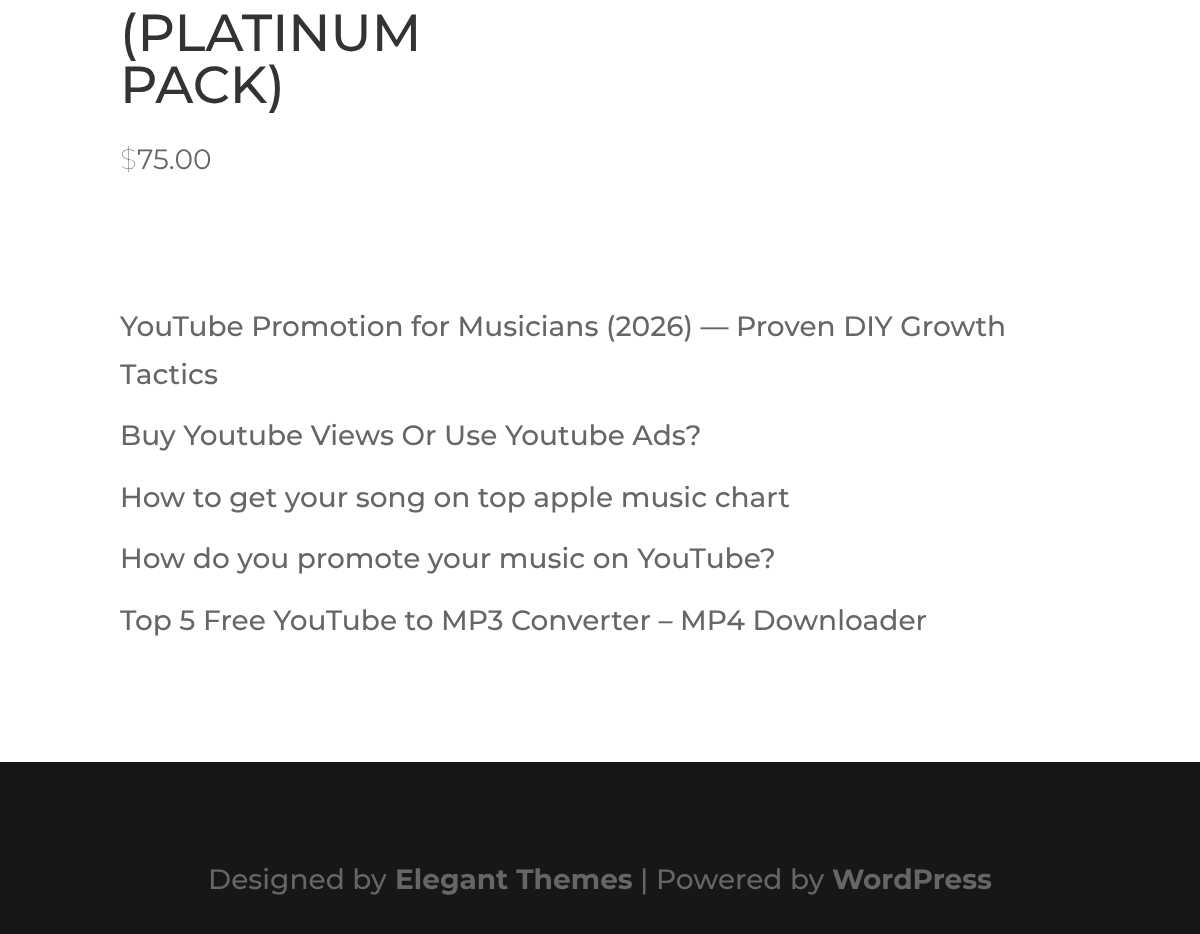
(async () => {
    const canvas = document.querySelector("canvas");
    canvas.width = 1200;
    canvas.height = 934;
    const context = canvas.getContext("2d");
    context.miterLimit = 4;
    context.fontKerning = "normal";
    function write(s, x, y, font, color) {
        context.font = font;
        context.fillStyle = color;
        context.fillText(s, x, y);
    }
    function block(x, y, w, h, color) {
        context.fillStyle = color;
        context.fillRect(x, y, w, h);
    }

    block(0, 0, 1200, 934, "rgb(255, 255, 255)");
    write("(PLATINUM", 120, 51, "500 52px Montserrat", "rgb(51, 51, 51)");
    write("PACK)", 120, 103, "500 52px Montserrat", "rgb(51, 51, 51)");
    write("$", 120, 169, "100 28px Montserrat", "rgb(102, 102, 102)");
    write("75.00", 137, 169, "28px Montserrat", "rgb(102, 102, 102)");
    write("YouTube Promotion for Musicians (2026) — Proven DIY Growth", 120, 336, "500 28px Montserrat", "rgb(102, 102, 102)");
    write("Tactics", 120, 384, "500 28px Montserrat", "rgb(102, 102, 102)");
    write("Buy Youtube Views Or Use Youtube Ads?", 120, 445, "500 28px Montserrat", "rgb(102, 102, 102)");
    write("How to get your song on top apple music chart", 120, 507, "500 28px Montserrat", "rgb(102, 102, 102)");
    write("How do you promote your music on YouTube?", 120, 568, "500 28px Montserrat", "rgb(102, 102, 102)");
    write("Top 5 Free YouTube to MP3 Converter – MP4 Downloader", 120, 630, "500 28px Montserrat", "rgb(102, 102, 102)");
    block(0, 762, 1200, 172, "rgb(23, 23, 23)");
    write("Designed by", 208, 889, "500 28px Montserrat", "rgb(102, 102, 102)");
    write("Elegant Themes", 395, 889, "bold 28px Montserrat", "rgb(102, 102, 102)");
    write("| Powered by", 640, 889, "500 28px Montserrat", "rgb(102, 102, 102)");
    write("WordPress", 832, 889, "bold 28px Montserrat", "rgb(102, 102, 102)");
})();
